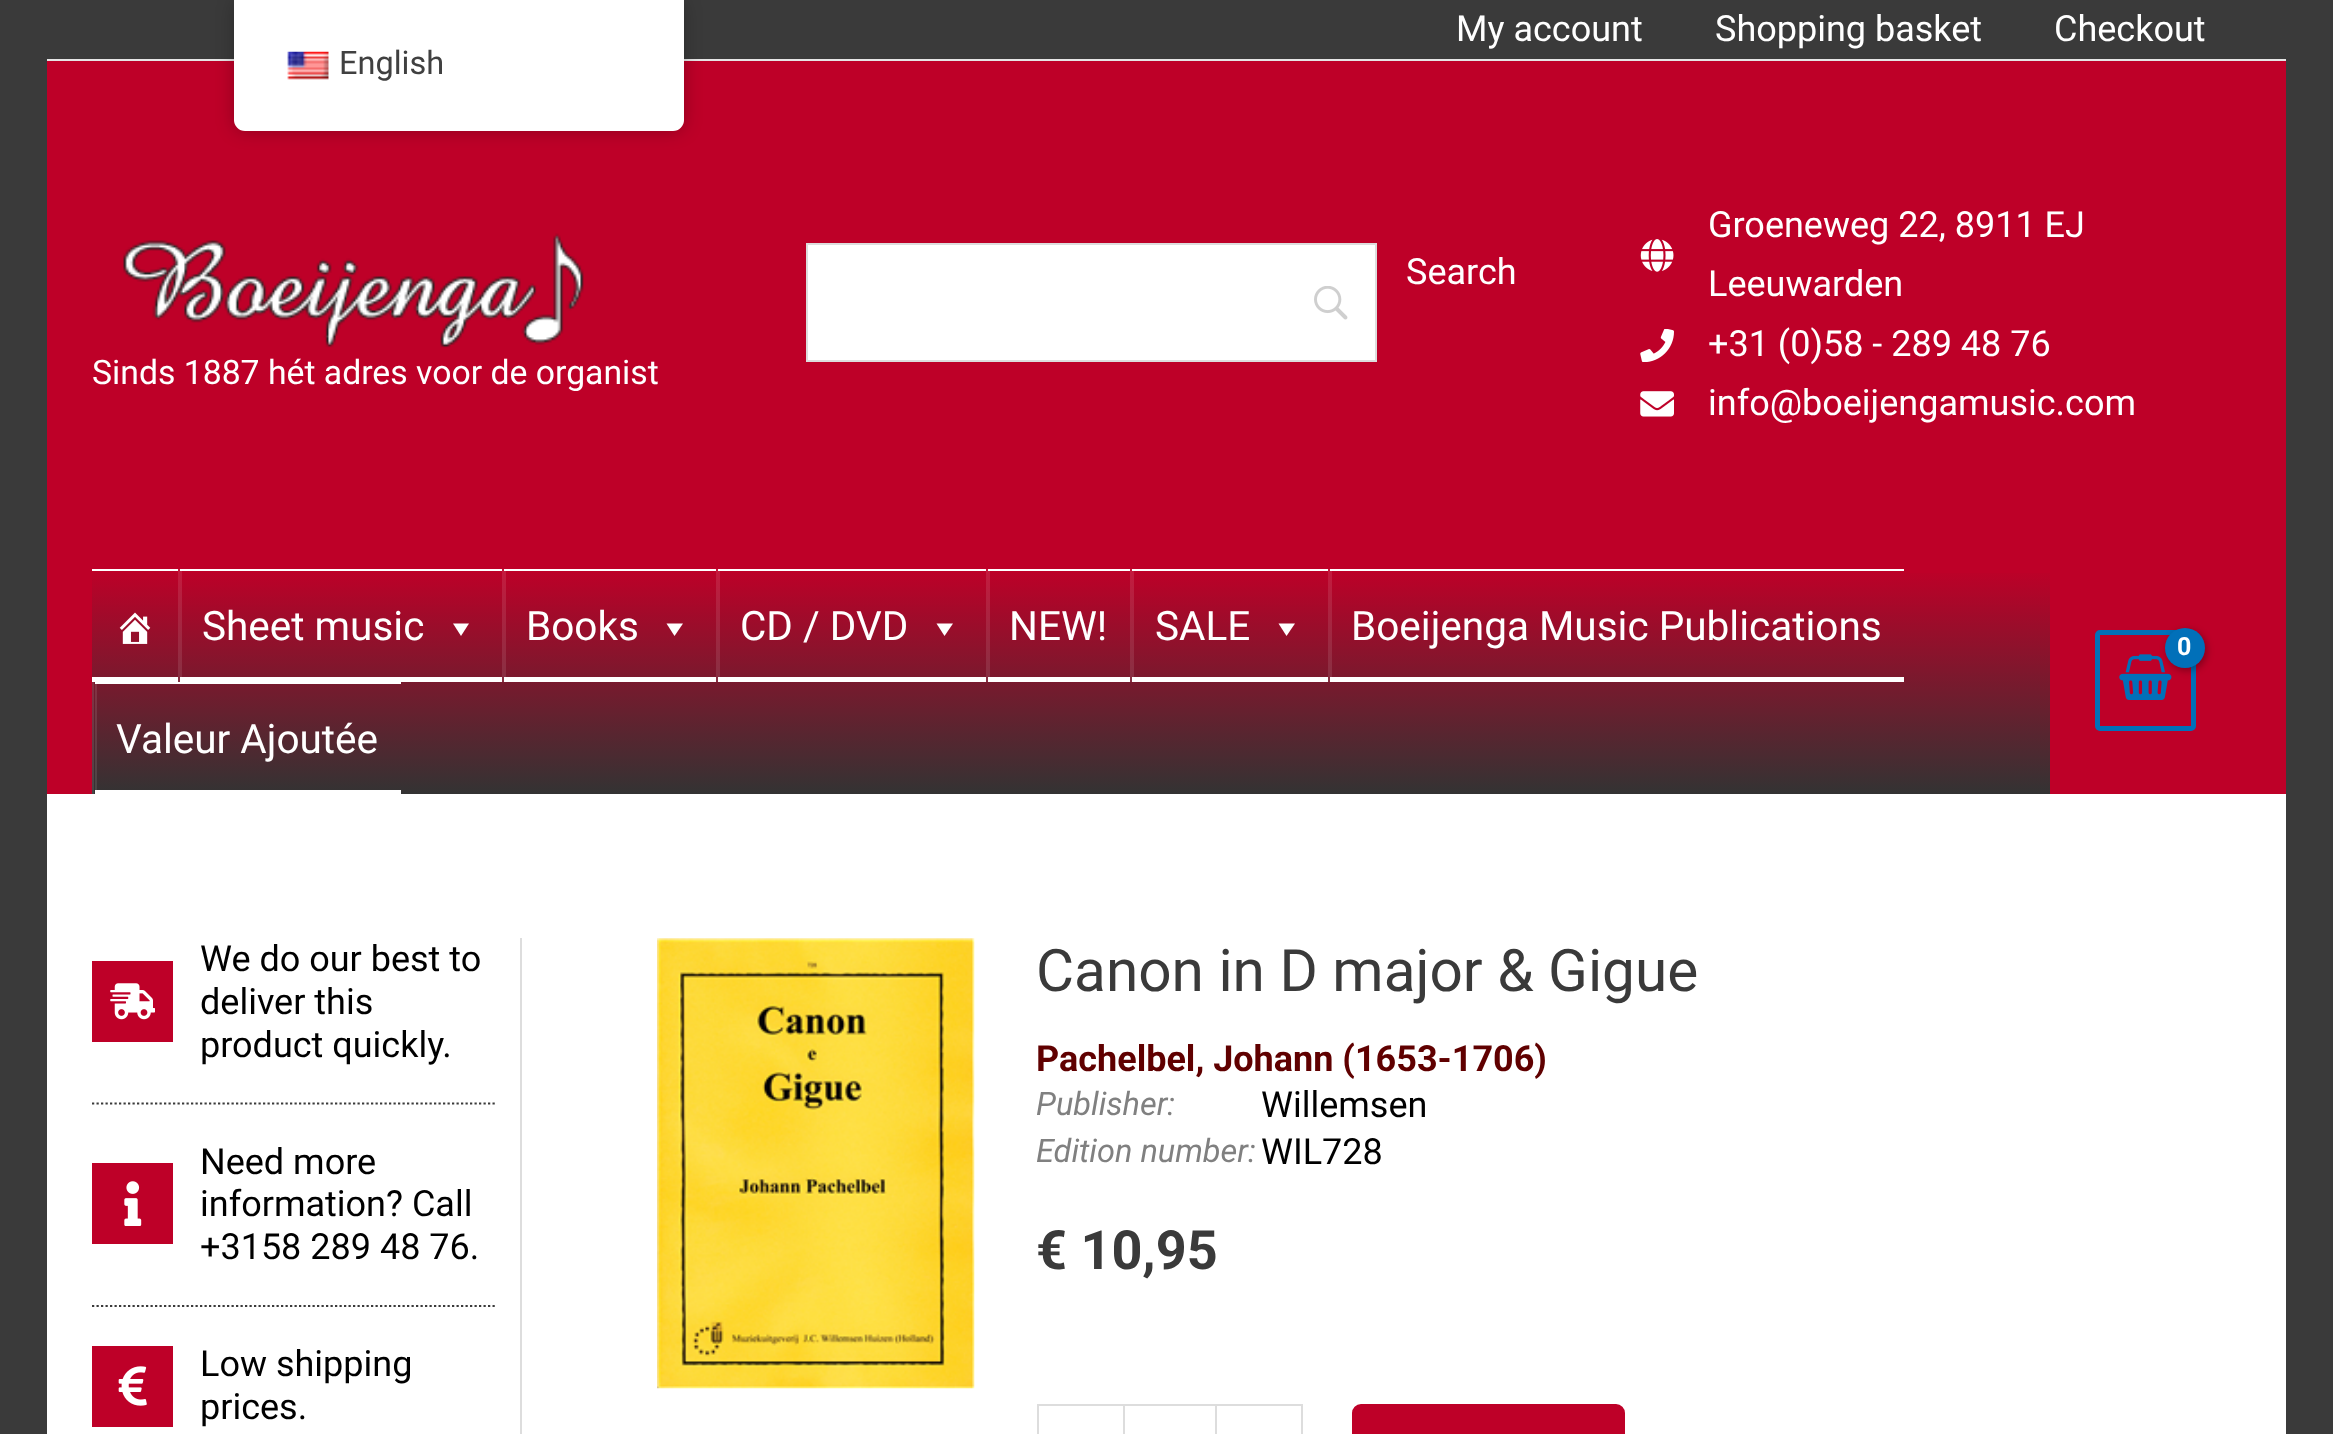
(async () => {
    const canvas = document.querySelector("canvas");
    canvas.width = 2333;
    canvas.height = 1434;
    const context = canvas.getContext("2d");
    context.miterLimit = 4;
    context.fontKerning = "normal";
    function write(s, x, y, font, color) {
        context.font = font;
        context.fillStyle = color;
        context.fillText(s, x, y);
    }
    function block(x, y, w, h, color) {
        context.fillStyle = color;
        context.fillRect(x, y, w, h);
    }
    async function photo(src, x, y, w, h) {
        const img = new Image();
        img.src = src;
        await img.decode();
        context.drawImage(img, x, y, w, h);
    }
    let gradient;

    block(0, 0, 2333, 1434, "rgb(58, 58, 58)");
    block(47, 59, 2239, 2, "rgb(229, 229, 229)");
    write("My account", 1456, 41, "36px Roboto", "rgb(255, 255, 255)");
    write("Shopping basket", 1715, 41, "36px Roboto", "rgb(255, 255, 255)");
    write("Checkout", 2054, 41, "36px Roboto", "rgb(255, 255, 255)");
    block(47, 61, 2239, 733, "rgb(190, 0, 40)");
    block(808, 245, 567, 115, "rgb(255, 255, 255)");
    await photo("media/1.png", 1314, 286, 34, 34);
    context.strokeStyle = "rgb(221, 221, 221)";
    context.lineWidth = 2;
    context.strokeRect(807, 244, 569, 117);
    write("Search", 1406, 284, "36px Roboto", "rgb(255, 255, 255)");
    await photo("media/2.png", 1640, 239, 34, 33);
    write("Groeneweg 22, 8911 EJ", 1708, 237, "36px Roboto", "rgb(255, 255, 255)");
    write("Leeuwarden", 1708, 296, "36px Roboto", "rgb(255, 255, 255)");
    await photo("media/3.png", 1640, 329, 34, 33);
    write("+31 (0)58 - 289 48 76", 1708, 356, "36px Roboto", "rgb(255, 255, 255)");
    await photo("media/4.png", 1640, 391, 34, 26);
    write("info@boeijengamusic.com", 1708, 415, "36px Roboto", "rgb(255, 255, 255)");
    await photo("media/5.png", 123, 233, 461, 115);
    write("Sinds 1887 hét adres voor de organist", 92, 384, "33.75px Roboto", "rgb(255, 255, 255)");
    gradient = context.createLinearGradient(1071, 569, 1071, 794);
    gradient.addColorStop(0, "rgb(190, 0, 40)");
    gradient.addColorStop(1, "rgb(51, 51, 51)");
    context.fillStyle = gradient;
    context.fillRect(92, 573, 1958, 221);
    gradient = context.createLinearGradient(1071, 569, 1071, 794);
    gradient.addColorStop(0, "rgb(197, 26, 62)");
    gradient.addColorStop(1, "rgb(71, 71, 71)");
    context.fillStyle = gradient;
    context.fillRect(92, 682, 2, 112);
    context.fillRect(95, 682, 2, 112);
    context.fillRect(1328, 569, 2, 113);
    context.fillRect(1330, 569, 2, 113);
    context.fillRect(986, 569, 2, 113);
    context.fillRect(988, 569, 2, 113);
    context.fillRect(1130, 569, 2, 113);
    context.fillRect(1132, 569, 2, 113);
    context.fillRect(716, 569, 2, 113);
    context.fillRect(718, 569, 2, 113);
    context.fillRect(502, 569, 2, 113);
    context.fillRect(504, 569, 2, 113);
    context.fillRect(178, 569, 2, 113);
    context.fillRect(180, 569, 2, 113);
    block(92, 569, 86, 2, "rgb(255, 255, 255)");
    block(92, 677, 86, 5, "rgb(255, 255, 255)");
    await photo("media/6.png", 119, 612, 32, 32);
    block(180, 569, 322, 2, "rgb(255, 255, 255)");
    block(180, 677, 322, 5, "rgb(255, 255, 255)");
    write("Sheet music", 202, 640, "40.5px Roboto", "rgb(255, 255, 255)");
    context.beginPath();
    context.moveTo(469, 623.5);
    context.lineTo(461, 636);
    context.lineTo(453, 623.5);
    context.closePath();
    context.fill();
    block(504, 569, 212, 2, "rgb(255, 255, 255)");
    block(504, 677, 212, 5, "rgb(255, 255, 255)");
    write("Books", 526, 640, "40.5px Roboto", "rgb(255, 255, 255)");
    context.beginPath();
    context.moveTo(683, 623.5);
    context.lineTo(674.5, 636);
    context.lineTo(666.5, 623.5);
    context.closePath();
    context.fill();
    block(718, 569, 268, 2, "rgb(255, 255, 255)");
    block(718, 677, 268, 5, "rgb(255, 255, 255)");
    write("CD / DVD", 740, 640, "40.5px Roboto", "rgb(255, 255, 255)");
    context.beginPath();
    context.moveTo(953, 623.5);
    context.lineTo(944.5, 636);
    context.lineTo(936.5, 623.5);
    context.closePath();
    context.fill();
    block(988, 569, 142, 2, "rgb(255, 255, 255)");
    block(988, 677, 142, 5, "rgb(255, 255, 255)");
    write("NEW!", 1009, 640, "40.5px Roboto", "rgb(255, 255, 255)");
    block(1132, 569, 196, 2, "rgb(255, 255, 255)");
    block(1132, 677, 196, 5, "rgb(255, 255, 255)");
    write("SALE", 1155, 640, "40.5px Roboto", "rgb(255, 255, 255)");
    context.beginPath();
    context.moveTo(1295, 623.5);
    context.lineTo(1286.5, 636);
    context.lineTo(1278.5, 623.5);
    context.closePath();
    context.fill();
    block(1330, 569, 574, 2, "rgb(255, 255, 255)");
    block(1330, 677, 574, 5, "rgb(255, 255, 255)");
    write("Boeijenga Music Publications", 1351, 640, "40.5px Roboto", "rgb(255, 255, 255)");
    block(95, 682, 306, 2, "rgb(255, 255, 255)");
    block(95, 790, 306, 4, "rgb(255, 255, 255)");
    write("Valeur Ajoutée", 116, 753, "40.5px Roboto", "rgb(255, 255, 255)");
    context.beginPath();
    context.roundRect(2097.5, 632.5, 96, 96, 2.5);
    context.strokeStyle = "rgb(1, 112, 185)";
    context.lineWidth = 5;
    context.stroke();
    await photo("media/7.png", 2119, 654, 53, 46);
    context.fillStyle = "rgba(0, 0, 0, 0.3)";
    context.filter = "blur(3.5px)";
    context.beginPath();
    context.roundRect(2167, 630, 40, 41, 20);
    context.fill();
    context.filter = "none";
    context.fillStyle = "rgb(1, 112, 185)";
    context.beginPath();
    context.arc(2185, 648, 20, 0, Math.PI * 2);
    context.fill();
    context.letterSpacing = "-1px";
    write("0", 2177, 655, "bold 25px Roboto", "rgb(255, 255, 255)");
    block(47, 794, 2239, 640, "rgb(255, 255, 255)");
    block(520, 938, 2, 496, "rgb(221, 221, 221)");
    context.beginPath();
    context.moveTo(92, 1103.5);
    context.lineTo(497, 1103.5);
    context.strokeStyle = "rgb(58, 58, 58)";
    context.lineWidth = 2.2;
    context.setLineDash([2.25, 2.25]);
    context.stroke();
    block(92, 961, 81, 81, "rgb(190, 0, 40)");
    await photo("media/8.png", 110, 983, 45, 37);
    context.letterSpacing = "0px";
    write("We do our best to", 200, 971, "36px Roboto", "rgb(0, 0, 0)");
    write("deliver this", 200, 1014, "36px Roboto", "rgb(0, 0, 0)");
    write("product quickly.", 200, 1057, "36px Roboto", "rgb(0, 0, 0)");
    context.beginPath();
    context.moveTo(92, 1306);
    context.lineTo(497, 1306);
    context.stroke();
    block(92, 1163, 81, 81, "rgb(190, 0, 40)");
    await photo("media/9.png", 124, 1181, 18, 45);
    write("Need more", 200, 1174, "36px Roboto", "rgb(0, 0, 0)");
    write("information? Call", 200, 1216, "36px Roboto", "rgb(0, 0, 0)");
    write("+3158 289 48 76.", 200, 1259, "36px Roboto", "rgb(0, 0, 0)");
    block(92, 1346, 81, 81, "rgb(190, 0, 40)");
    await photo("media/10.png", 118, 1366, 29, 40);
    write("Low shipping", 200, 1376, "36px Roboto", "rgb(0, 0, 0)");
    write("prices.", 200, 1419, "36px Roboto", "rgb(0, 0, 0)");
    await photo("media/11.png", 657, 938, 318, 451);
    write("Canon in D major & Gigue", 1036, 991, "58.5px Roboto", "rgb(58, 58, 58)");
    write("Pachelbel, Johann (1653-1706)", 1036, 1071, "bold 36px Roboto", "rgb(96, 0, 0)");
    write("Publisher:", 1036, 1115, "italic 32.5px Roboto", "rgb(128, 128, 128)");
    write("Willemsen", 1261, 1117, "36px Roboto", "rgb(0, 0, 0)");
    write("Edition number:", 1036, 1162, "italic 32.5px Roboto", "rgb(128, 128, 128)");
    write("WIL728", 1261, 1164, "36px Roboto", "rgb(0, 0, 0)");
    write("€ 10,95", 1036, 1269, "bold 54px Roboto", "rgb(58, 58, 58)");
    block(1037, 1404, 86, 2, "rgb(221, 221, 221)");
    block(1037, 1404, 2, 30, "rgb(221, 221, 221)");
    context.strokeStyle = "rgb(221, 221, 221)";
    context.lineWidth = 2;
    context.setLineDash([]);
    context.strokeRect(1124, 1405, 92, 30);
    block(1217, 1404, 86, 2, "rgb(221, 221, 221)");
    block(1301, 1404, 2, 30, "rgb(221, 221, 221)");
    context.fillStyle = "rgb(190, 0, 40)";
    context.beginPath();
    context.roundRect(1353, 1405, 271, 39, 8);
    context.fill();
    context.strokeStyle = "rgb(190, 0, 40)";
    context.stroke();
    context.fillStyle = "rgba(0, 0, 0, 0.25)";
    context.filter = "blur(9px)";
    context.beginPath();
    context.roundRect(234, 0, 450, 131, 11);
    context.fill();
    context.filter = "none";
    context.fillStyle = "rgb(255, 255, 255)";
    context.beginPath();
    context.roundRect(234, 0, 450, 131, [0, 0, 11, 11]);
    context.fill();
    await photo("media/12.png", 287, 51, 42, 29);
    write("English", 339, 74, "32.5px Roboto", "rgb(64, 64, 64)");
})();
